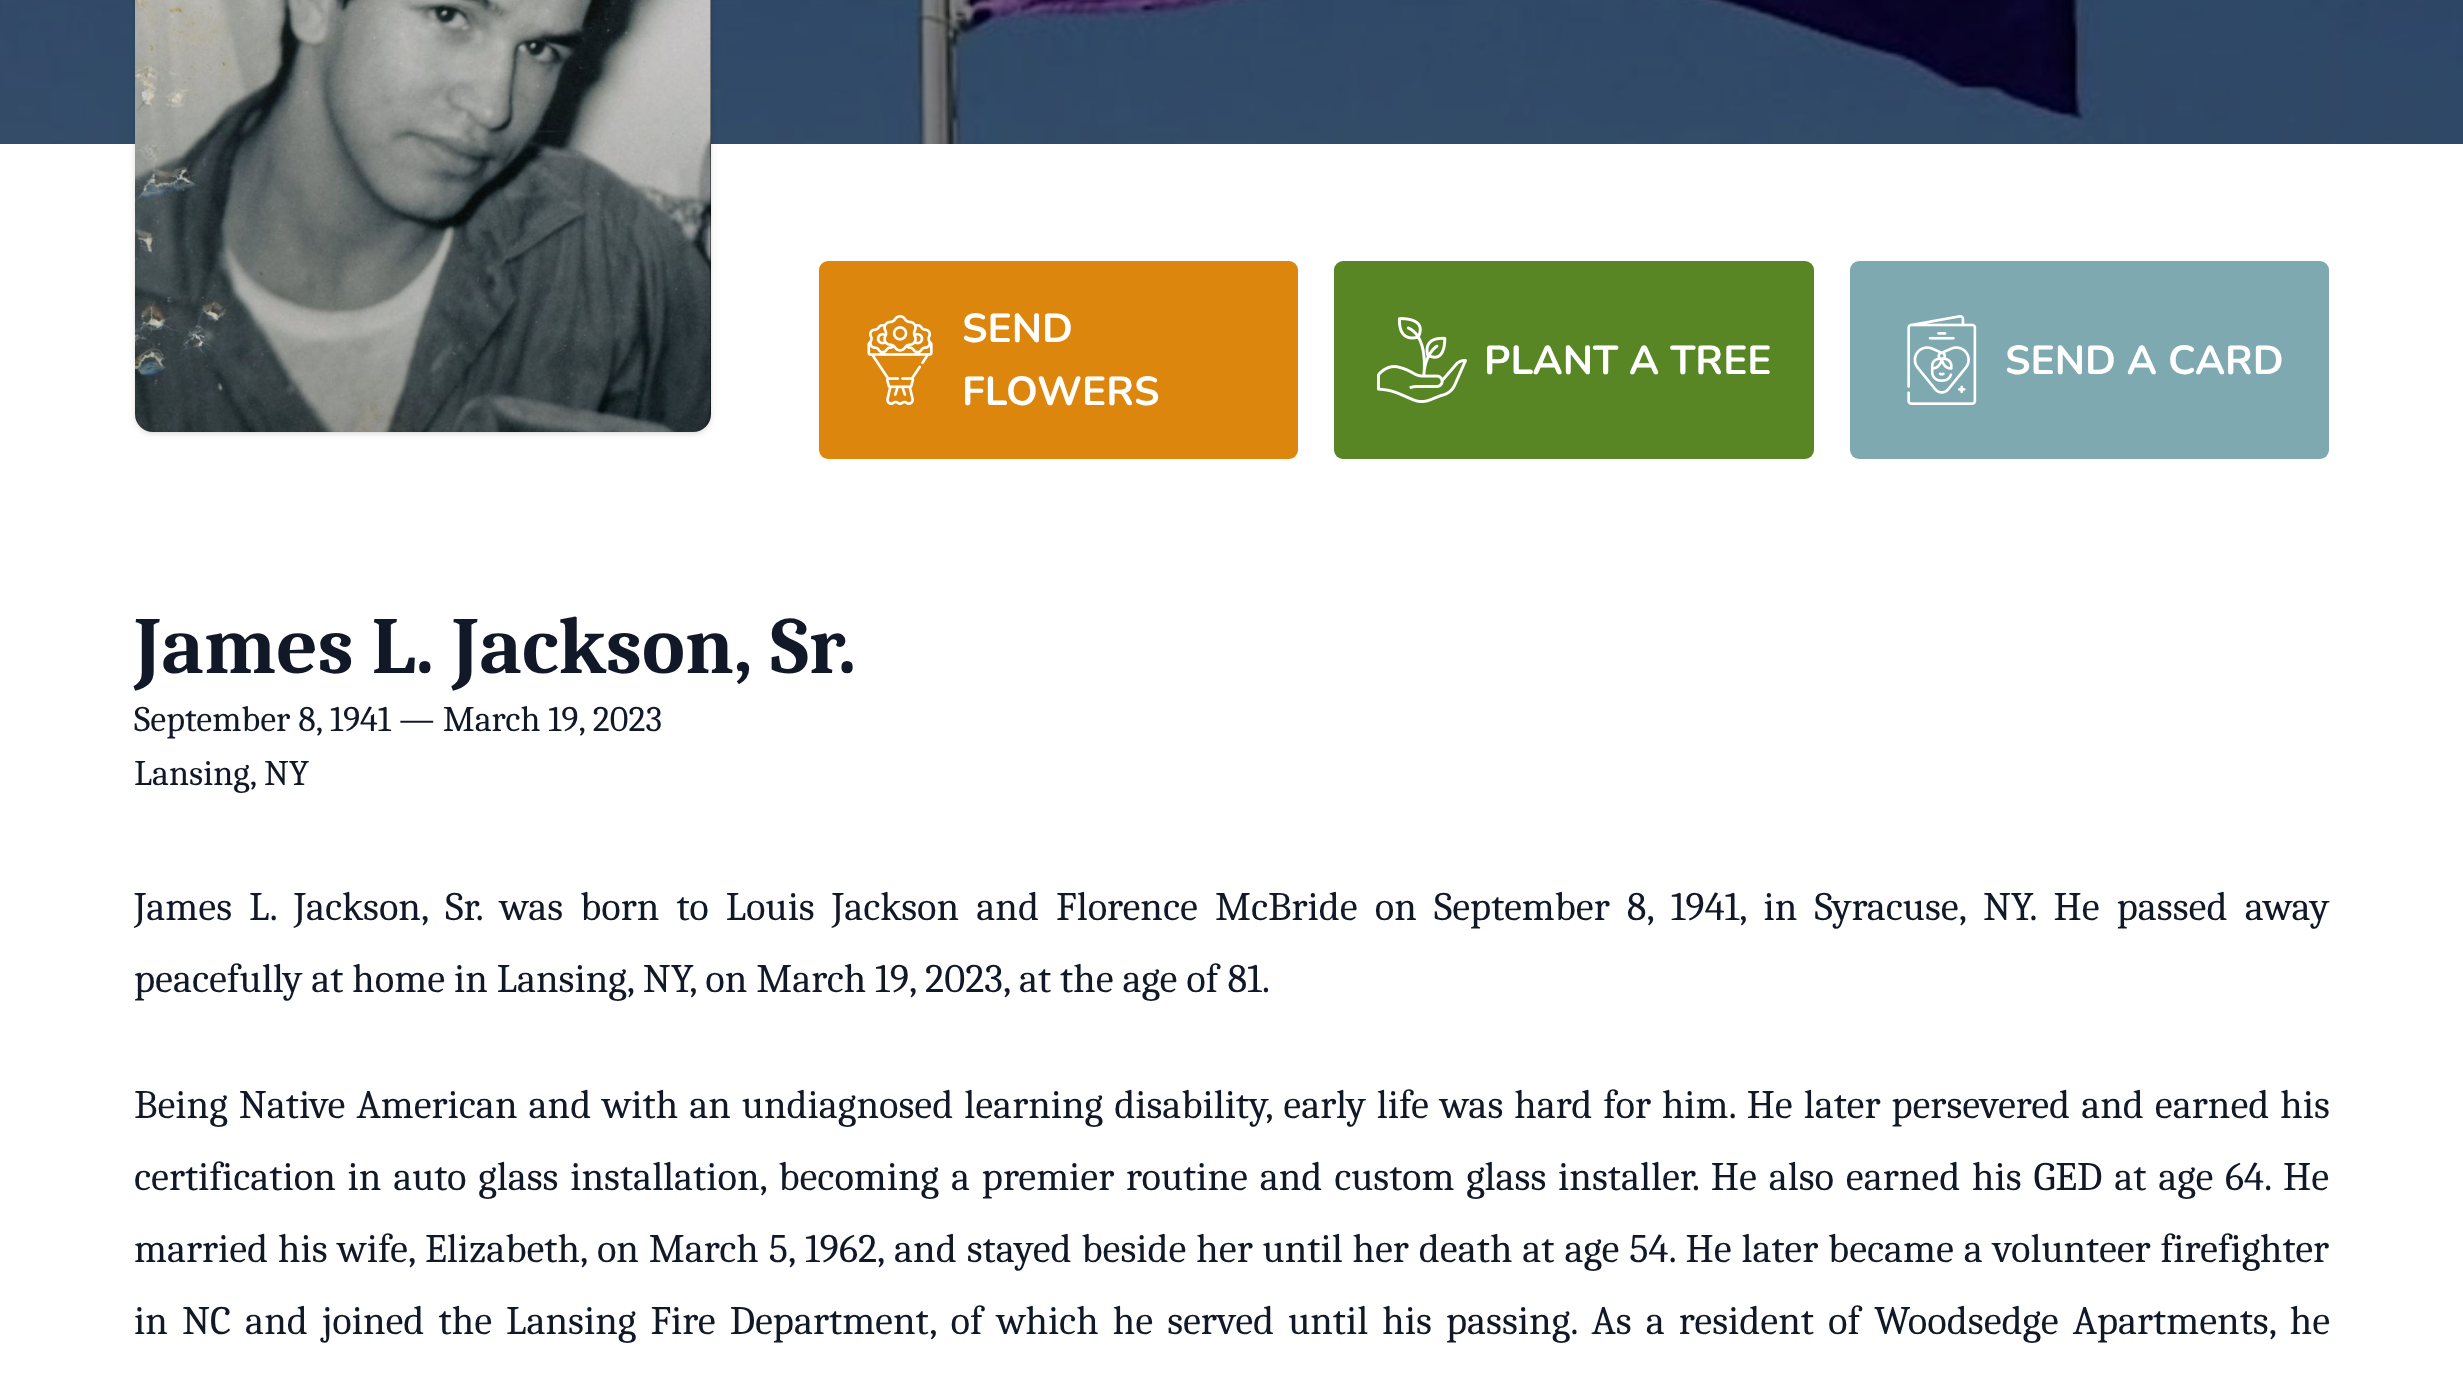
(async () => {
    const canvas = document.querySelector("canvas");
    canvas.width = 2463;
    canvas.height = 1391;
    const context = canvas.getContext("2d");
    context.miterLimit = 4;
    context.fontKerning = "normal";
    function write(s, x, y, font, color) {
        context.font = font;
        context.fillStyle = color;
        context.fillText(s, x, y);
    }
    function block(x, y, w, h, color) {
        context.fillStyle = color;
        context.fillRect(x, y, w, h);
    }
    function card(x, y, w, h, r, color) {
        context.fillStyle = color;
        context.beginPath();
        context.roundRect(x, y, w, h, r);
        context.fill();
    }
    async function photo(src, x, y, w, h) {
        const img = new Image();
        img.src = src;
        await img.decode();
        context.drawImage(img, x, y, w, h);
    }

    block(0, 0, 2463, 1391, "rgb(255, 255, 255)");
    await photo("media/1.png", 0, 0, 2463, 144);
    context.fillStyle = "rgba(0, 0, 0, 0.1)";
    context.filter = "blur(2px)";
    context.beginPath();
    context.roundRect(137, -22, 572, 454, 16);
    context.fill();
    context.filter = "none";
    context.filter = "blur(3.5px)";
    context.beginPath();
    context.roundRect(135, -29, 576, 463, 18);
    context.fill();
    context.filter = "none";
    await photo("media/2.png", 135, 0, 576, 432);
    card(819, 261, 479, 198, 9, "rgb(220, 134, 13)");
    await photo("media/3.png", 867, 315, 66, 90);
    write("SEND", 962, 342, "bold 40.5px Nunito", "rgb(255, 255, 255)");
    write("FLOWERS", 962, 405, "bold 40.5px Nunito", "rgb(255, 255, 255)");
    card(1334, 261, 480, 198, 9, "rgb(88, 134, 36)");
    await photo("media/4.png", 1377, 317, 90, 86);
    write("PLANT A TREE", 1484, 374, "bold 40.5px Nunito", "rgb(255, 255, 255)");
    card(1850, 261, 479, 198, 9, "rgb(126, 169, 176)");
    await photo("media/5.png", 1907, 315, 70, 90);
    write("SEND A CARD", 2005, 374, "bold 40.5px Nunito", "rgb(255, 255, 255)");
    write("James L. Jackson, Sr.", 134, 673, "bold 81px Caladea", "rgb(17, 24, 39)");
    write("September 8, 1941 — March 19, 2023", 134, 731, "36px Caladea", "rgb(17, 24, 39)");
    write("Lansing, NY", 134, 785, "36px Caladea", "rgb(17, 24, 39)");
    context.wordSpacing = "8.2px";
    write("James L. Jackson, Sr. was born to Louis Jackson and Florence McBride on September 8, 1941, in Syracuse, NY. He passed away", 134, 920, "40.5px Caladea", "rgb(17, 24, 39)");
    context.wordSpacing = "0px";
    write("peacefully at home in Lansing, NY, on March 19, 2023, at the age of 81.", 134, 992, "40.5px Caladea", "rgb(17, 24, 39)");
    context.wordSpacing = "2.1px";
    write("Being Native American and with an undiagnosed learning disability, early life was hard for him. He later persevered and earned his", 134, 1118, "40.5px Caladea", "rgb(17, 24, 39)");
    context.wordSpacing = "2.9px";
    write("certification in auto glass installation, becoming a premier routine and custom glass installer. He also earned his GED at age 64. He", 134, 1190, "40.5px Caladea", "rgb(17, 24, 39)");
    context.wordSpacing = "1px";
    write("married his wife, Elizabeth, on March 5, 1962, and stayed beside her until her death at age 54. He later became a volunteer firefighter", 134, 1262, "40.5px Caladea", "rgb(17, 24, 39)");
    context.wordSpacing = "5.2px";
    write("in NC and joined the Lansing Fire Department, of which he served until his passing. As a resident of Woodsedge Apartments, he", 134, 1334, "40.5px Caladea", "rgb(17, 24, 39)");
})();
